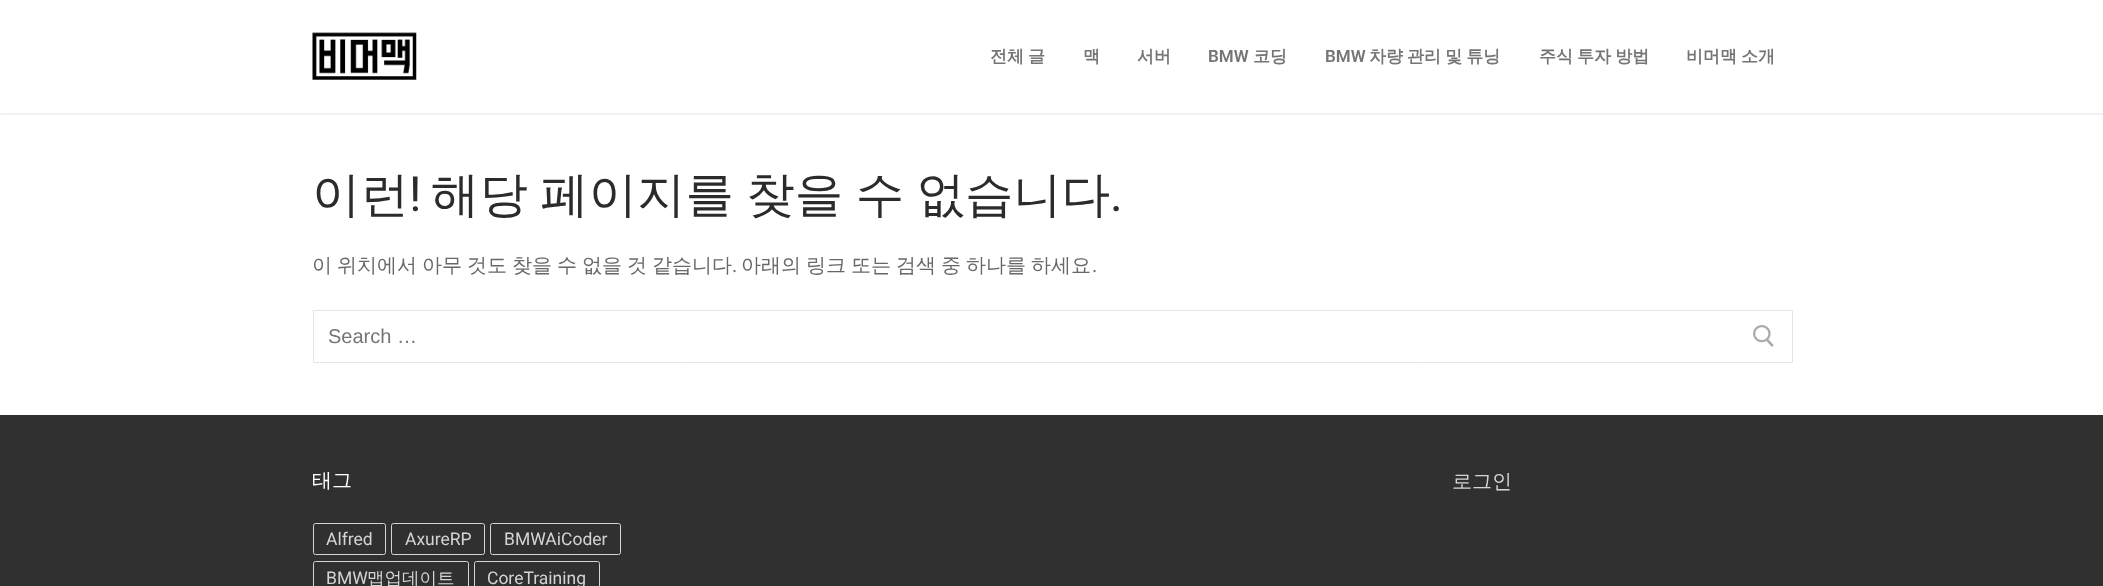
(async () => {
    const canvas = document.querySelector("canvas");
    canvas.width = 2103;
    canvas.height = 586;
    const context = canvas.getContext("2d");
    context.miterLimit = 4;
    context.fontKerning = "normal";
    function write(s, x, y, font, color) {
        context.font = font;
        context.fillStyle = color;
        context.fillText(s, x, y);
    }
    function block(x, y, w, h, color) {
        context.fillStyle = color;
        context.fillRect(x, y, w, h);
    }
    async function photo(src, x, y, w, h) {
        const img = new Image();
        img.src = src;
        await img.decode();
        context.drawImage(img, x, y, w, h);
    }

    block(0, 0, 2103, 586, "rgb(255, 255, 255)");
    context.fillStyle = "rgb(225, 229, 234)";
    context.filter = "blur(1px)";
    context.beginPath();
    context.rect(0, 1, 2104, 113);
    context.fill();
    context.filter = "none";
    block(0, 0, 2103, 113, "rgb(255, 255, 255)");
    await photo("media/1.png", 312, 32, 105, 48);
    context.wordSpacing = "-1px";
    write("전체 글", 990, 62, "bold 17px WenQuanYi Zen Hei", "rgb(117, 117, 117)");
    context.wordSpacing = "0px";
    write("맥", 1083, 62, "bold 17px WenQuanYi Zen Hei", "rgb(117, 117, 117)");
    write("서버", 1137, 62, "bold 17px WenQuanYi Zen Hei", "rgb(117, 117, 117)");
    write("BMW", 1208, 62, "600 17px Roboto", "rgb(117, 117, 117)");
    write("코딩", 1253, 62, "bold 17px WenQuanYi Zen Hei", "rgb(117, 117, 117)");
    write("BMW", 1325, 62, "600 17px Roboto", "rgb(117, 117, 117)");
    context.wordSpacing = "-1px";
    write("차량 관리 및 튜닝", 1369, 62, "bold 17px WenQuanYi Zen Hei", "rgb(117, 117, 117)");
    write("주식 투자 방법", 1539, 62, "bold 17px WenQuanYi Zen Hei", "rgb(117, 117, 117)");
    write("비머맥 소개", 1686, 62, "bold 17px WenQuanYi Zen Hei", "rgb(117, 117, 117)");
    context.wordSpacing = "0px";
    write("이런", 312, 211, "500 48.4px WenQuanYi Zen Hei", "rgb(43, 43, 43)");
    write("!", 409, 211, "48.4px Roboto", "rgb(43, 43, 43)");
    context.wordSpacing = "-2px";
    write("해당 페이지를 찾을 수 없습니다", 431, 211, "500 48.4px WenQuanYi Zen Hei", "rgb(43, 43, 43)");
    context.wordSpacing = "0px";
    write(".", 1110, 211, "48.4px Roboto", "rgb(43, 43, 43)");
    context.wordSpacing = "-1px";
    write("이 위치에서 아무 것도 찾을 수 없을 것 같습니다", 312, 272, "500 20px WenQuanYi Zen Hei", "rgb(104, 104, 104)");
    context.wordSpacing = "0px";
    write(".", 732, 272, "20px Roboto", "rgb(104, 104, 104)");
    context.wordSpacing = "-1px";
    write("아래의 링크 또는 검색 중 하나를 하세요", 741, 272, "500 20px WenQuanYi Zen Hei", "rgb(104, 104, 104)");
    context.wordSpacing = "0px";
    write(".", 1092, 272, "20px Roboto", "rgb(104, 104, 104)");
    context.beginPath();
    context.roundRect(313.5, 310.5, 1479, 52, 0.5);
    context.strokeStyle = "rgb(229, 229, 229)";
    context.stroke();
    write("Search …", 328, 343, "20px Liberation Sans", "rgb(117, 117, 117)");
    await photo("media/2.png", 1753, 325, 21, 22);
    block(0, 415, 2103, 171, "rgb(48, 48, 48)");
    write("태그", 312, 487, "500 20px WenQuanYi Zen Hei", "rgb(253, 253, 253)");
    context.beginPath();
    context.roundRect(313.5, 523.5, 72, 31, 2);
    context.strokeStyle = "rgb(212, 212, 212)";
    context.stroke();
    write("Alfred", 326, 545, "17.5px Roboto", "rgb(212, 212, 212)");
    context.beginPath();
    context.roundRect(391.5, 523.5, 93, 31, 2);
    context.stroke();
    write("AxureRP", 405, 545, "17.5px Roboto", "rgb(212, 212, 212)");
    context.beginPath();
    context.roundRect(490.5, 523.5, 130, 31, 2);
    context.stroke();
    write("BMWAiCoder", 504, 545, "17.5px Roboto", "rgb(212, 212, 212)");
    context.beginPath();
    context.roundRect(313.5, 561.5, 155, 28, 2);
    context.stroke();
    write("BMW", 326, 584, "17.5px Roboto", "rgb(212, 212, 212)");
    write("맵업데이트", 367, 584, "500 17.5px WenQuanYi Zen Hei", "rgb(212, 212, 212)");
    context.beginPath();
    context.roundRect(474.5, 561.5, 125, 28, 2);
    context.stroke();
    write("CoreTraining", 487, 584, "17.5px Roboto", "rgb(212, 212, 212)");
    write("로그인", 1452, 488, "500 20px WenQuanYi Zen Hei", "rgb(212, 212, 212)");
})();
